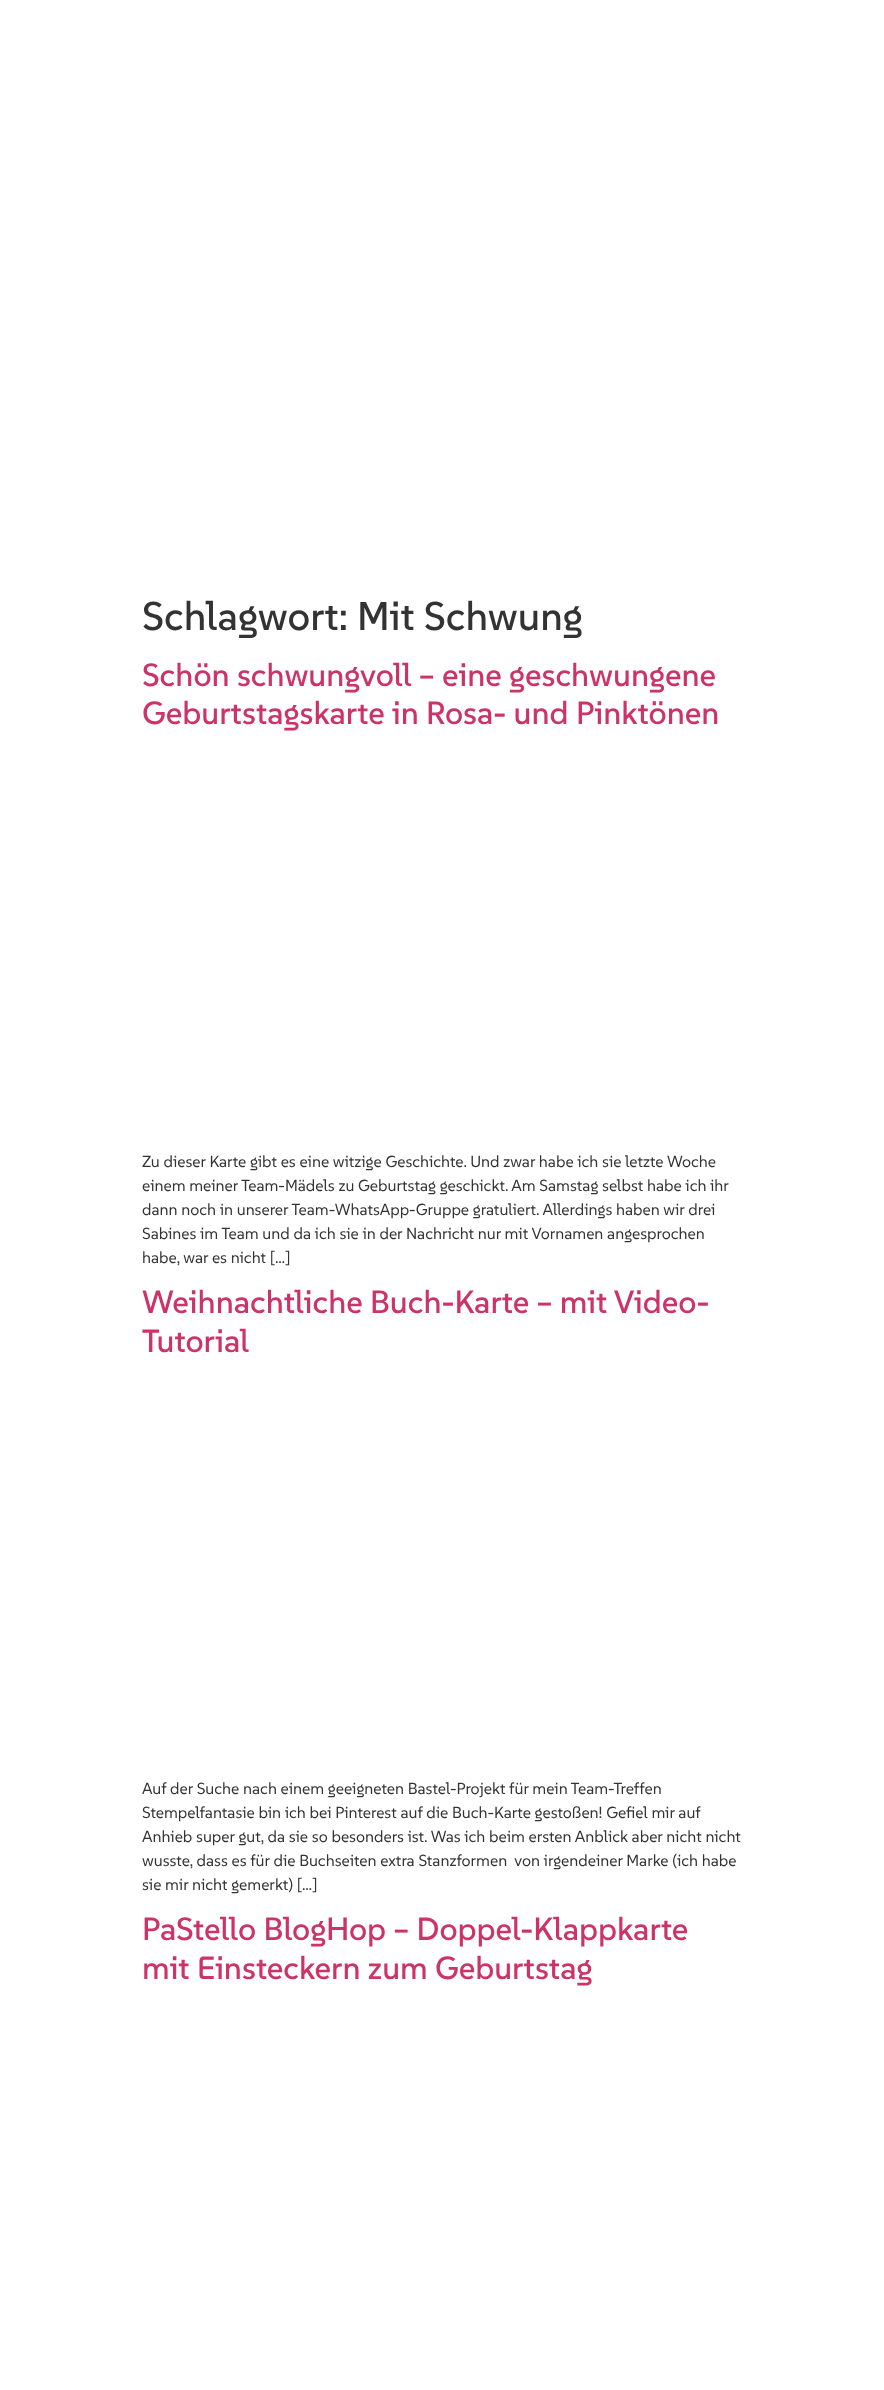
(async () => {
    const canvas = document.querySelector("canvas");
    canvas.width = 884;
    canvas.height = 2390;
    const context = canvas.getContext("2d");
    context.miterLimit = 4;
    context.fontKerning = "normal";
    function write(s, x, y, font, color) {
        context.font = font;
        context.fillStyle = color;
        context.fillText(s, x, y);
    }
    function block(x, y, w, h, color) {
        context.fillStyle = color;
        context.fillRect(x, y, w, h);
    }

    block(0, 0, 884, 2390, "rgb(255, 255, 255)");
    write("Schlagwort: Mit Schwung", 142, 630, "500 40px SUSE", "rgb(51, 51, 51)");
    write("Schön schwungvoll – eine geschwungene", 142, 686, "500 32px SUSE", "rgb(204, 51, 102)");
    write("Geburtstagskarte in Rosa- und Pinktönen", 142, 724, "500 32px SUSE", "rgb(204, 51, 102)");
    write("Zu dieser Karte gibt es eine witzige Geschichte. Und zwar habe ich sie letzte Woche", 142, 1167, "16px SUSE", "rgb(51, 51, 51)");
    write("einem meiner Team-Mädels zu Geburtstag geschickt. Am Samstag selbst habe ich ihr", 142, 1191, "16px SUSE", "rgb(51, 51, 51)");
    write("dann noch in unserer Team-WhatsApp-Gruppe gratuliert. Allerdings haben wir drei", 142, 1215, "16px SUSE", "rgb(51, 51, 51)");
    write("Sabines im Team und da ich sie in der Nachricht nur mit Vornamen angesprochen", 142, 1239, "16px SUSE", "rgb(51, 51, 51)");
    write("habe, war es nicht […]", 142, 1263, "16px SUSE", "rgb(51, 51, 51)");
    write("Weihnachtliche Buch-Karte – mit Video-", 142, 1313, "500 32px SUSE", "rgb(204, 51, 102)");
    write("Tutorial", 142, 1352, "500 32px SUSE", "rgb(204, 51, 102)");
    write("Auf der Suche nach einem geeigneten Bastel-Projekt für mein Team-Treffen", 142, 1794, "16px SUSE", "rgb(51, 51, 51)");
    write("Stempelfantasie bin ich bei Pinterest auf die Buch-Karte gestoßen! Gefiel mir auf", 142, 1818, "16px SUSE", "rgb(51, 51, 51)");
    write("Anhieb super gut, da sie so besonders ist. Was ich beim ersten Anblick aber nicht nicht", 142, 1842, "16px SUSE", "rgb(51, 51, 51)");
    write("wusste, dass es für die Buchseiten extra Stanzformen  von irgendeiner Marke (ich habe", 142, 1866, "16px SUSE", "rgb(51, 51, 51)");
    write("sie mir nicht gemerkt) […]", 142, 1890, "16px SUSE", "rgb(51, 51, 51)");
    write("PaStello BlogHop – Doppel-Klappkarte", 142, 1940, "500 32px SUSE", "rgb(204, 51, 102)");
    write("mit Einsteckern zum Geburtstag", 142, 1979, "500 32px SUSE", "rgb(204, 51, 102)");
})();
